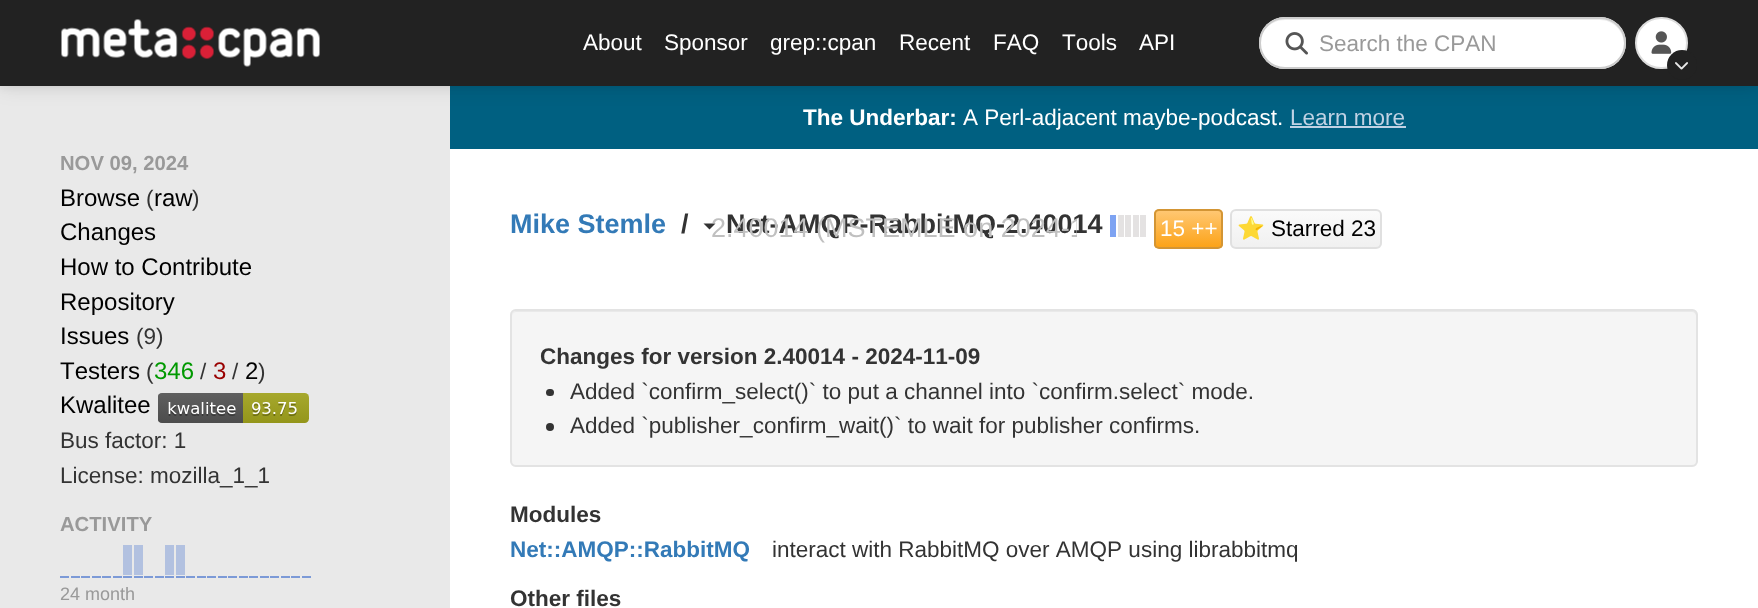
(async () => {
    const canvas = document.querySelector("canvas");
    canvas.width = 1758;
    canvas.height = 608;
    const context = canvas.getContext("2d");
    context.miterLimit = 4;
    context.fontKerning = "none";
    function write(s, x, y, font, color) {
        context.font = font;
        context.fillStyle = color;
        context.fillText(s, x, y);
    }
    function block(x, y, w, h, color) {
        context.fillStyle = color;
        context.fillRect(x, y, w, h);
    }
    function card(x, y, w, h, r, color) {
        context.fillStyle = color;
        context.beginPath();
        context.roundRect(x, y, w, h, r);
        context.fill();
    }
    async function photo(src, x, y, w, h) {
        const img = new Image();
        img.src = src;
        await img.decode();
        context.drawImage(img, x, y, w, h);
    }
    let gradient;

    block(0, 0, 1758, 608, "rgb(255, 255, 255)");
    block(450, 86, 1308, 63, "rgb(0, 96, 129)");
    block(0, 86, 450, 522, "rgb(233, 233, 233)");
    context.fillStyle = "rgba(0, 0, 0, 0.06)";
    context.filter = "blur(4px)";
    context.beginPath();
    context.rect(0, 2, 1758, 85);
    context.fill();
    context.filter = "none";
    context.fillStyle = "rgba(0, 0, 0, 0.1)";
    context.filter = "blur(10px)";
    context.beginPath();
    context.rect(0, 2, 1758, 85);
    context.fill();
    context.filter = "none";
    block(0, 0, 1758, 86, "rgb(34, 34, 34)");
    await photo("media/1.png", 61, 19, 259, 48);
    write("About", 583, 50, "22.5px Liberation Sans", "rgb(255, 255, 255)");
    write("Sponsor", 664, 50, "22.5px Liberation Sans", "rgb(255, 255, 255)");
    write("grep::cpan", 770, 50, "22.5px Liberation Sans", "rgb(255, 255, 255)");
    write("Recent", 899, 50, "22.5px Liberation Sans", "rgb(255, 255, 255)");
    write("FAQ", 993, 50, "22.5px Liberation Sans", "rgb(255, 255, 255)");
    write("Tools", 1062, 50, "22.5px Liberation Sans", "rgb(255, 255, 255)");
    write("API", 1139, 50, "22.5px Liberation Sans", "rgb(255, 255, 255)");
    card(1259, 17, 367, 52, 26, "rgb(255, 255, 255)");
    context.fillStyle = "rgb(236, 236, 236)";
    context.beginPath();
    context.moveTo(1285, 20);
    context.lineTo(1600, 20);
    context.bezierCurveTo(1613, 20, 1624, 31, 1624, 44);
    context.bezierCurveTo(1624, 50, 1622, 55, 1619, 59);
    context.bezierCurveTo(1623, 55, 1625, 49, 1625, 43);
    context.bezierCurveTo(1625, 29, 1614, 18, 1600, 18);
    context.lineTo(1285, 18);
    context.bezierCurveTo(1271, 18, 1260, 29, 1260, 43);
    context.lineTo(1260, 44);
    context.bezierCurveTo(1260, 31, 1271, 20, 1285, 20);
    context.closePath();
    context.fill();
    context.beginPath();
    context.roundRect(1260, 18, 365, 50, 25);
    context.strokeStyle = "rgb(204, 204, 204)";
    context.lineWidth = 2;
    context.stroke();
    await photo("media/2.png", 1285, 32, 23, 23);
    write("Search the CPAN", 1319, 51, "22.5px Liberation Sans", "rgb(153, 153, 153)");
    context.fillStyle = "rgb(255, 255, 255)";
    context.beginPath();
    context.roundRect(1636, 18, 51, 50, 25);
    context.fill();
    context.strokeStyle = "rgb(221, 221, 221)";
    context.stroke();
    await photo("media/3.png", 1651, 31, 21, 23);
    context.fillStyle = "rgb(34, 34, 34)";
    context.beginPath();
    context.arc(1682, 65, 15, 0, Math.PI * 2);
    context.fill();
    await photo("media/4.png", 1675, 62, 13, 8);
    write("The Underbar:", 803, 125, "bold 22.5px Liberation Sans", "rgb(255, 255, 255)");
    write("A Perl-adjacent maybe-podcast.", 963, 125, "22.5px Liberation Sans", "rgb(255, 255, 255)");
    write("Learn more", 1290, 125, "22.5px Liberation Sans", "rgb(192, 210, 228)");
    block(1290, 126, 116, 2, "rgb(192, 210, 228)");
    write("NOV 09, 2024", 60, 170, "bold 20.25px Liberation Sans", "rgb(153, 153, 153)");
    write("Browse", 60, 206, "24px Liberation Sans", "rgb(0, 0, 0)");
    write("(", 146, 206, "22.5px Liberation Sans", "rgb(51, 51, 51)");
    write("raw", 154, 206, "24px Liberation Sans", "rgb(0, 0, 0)");
    write(")", 192, 206, "22.5px Liberation Sans", "rgb(51, 51, 51)");
    write("Changes", 60, 240, "24px Liberation Sans", "rgb(0, 0, 0)");
    write("How to Contribute", 60, 275, "24px Liberation Sans", "rgb(0, 0, 0)");
    write("Repository", 60, 310, "24px Liberation Sans", "rgb(0, 0, 0)");
    write("Issues", 60, 344, "24px Liberation Sans", "rgb(0, 0, 0)");
    write("(9)", 136, 344, "22.5px Liberation Sans", "rgb(51, 51, 51)");
    write("Testers", 60, 379, "24px Liberation Sans", "rgb(0, 0, 0)");
    write("(", 146, 379, "22.5px Liberation Sans", "rgb(51, 51, 51)");
    write("346", 154, 379, "24px Liberation Sans", "rgb(0, 153, 0)");
    write("/", 200, 379, "22.5px Liberation Sans", "rgb(51, 51, 51)");
    write("3", 213, 379, "24px Liberation Sans", "rgb(153, 0, 0)");
    write("/", 232, 379, "22.5px Liberation Sans", "rgb(51, 51, 51)");
    write("2", 245, 379, "24px Liberation Sans", "rgb(0, 0, 0)");
    write(")", 258, 379, "22.5px Liberation Sans", "rgb(51, 51, 51)");
    write("Kwalitee", 60, 413, "24px Liberation Sans", "rgb(0, 0, 0)");
    await photo("media/5.png", 158, 393, 151, 30);
    write("Bus factor: 1", 60, 448, "22.5px Liberation Sans", "rgb(51, 51, 51)");
    write("License: mozilla_1_1", 60, 483, "22.5px Liberation Sans", "rgb(51, 51, 51)");
    write("ACTIVITY", 60, 531, "bold 20.25px Liberation Sans", "rgb(153, 153, 153)");
    await photo("media/6.png", 60, 545, 251, 33);
    write("24 month", 60, 600, "18px Liberation Sans", "rgb(153, 153, 153)");
    write("Mike Stemle", 510, 233, "bold 27px Liberation Sans", "rgb(51, 122, 183)");
    write("/", 681, 233, "bold 27px Liberation Sans", "rgb(51, 51, 51)");
    write("Net-AMQP-RabbitMQ-2.40014", 726, 233, "bold 27px Liberation Sans", "rgb(51, 51, 51)");
    context.beginPath();
    context.moveTo(703.5, 223.5);
    context.lineTo(715.5, 223.5);
    context.lineTo(709.5, 229.5);
    context.closePath();
    context.fill();
    context.save();
    context.beginPath();
    context.rect(711, 212, 366, 33);
    context.clip();
    write("2.40014 (MSTEMLE on 2024-1", 711, 237, "27px Liberation Sans", "rgb(192, 192, 192)");
    context.restore();
    block(1110, 215, 6, 22, "rgb(126, 163, 242)");
    block(1118, 215, 6, 22, "rgb(228, 226, 226)");
    block(1125, 215, 6, 22, "rgb(228, 226, 226)");
    block(1133, 215, 6, 22, "rgb(228, 226, 226)");
    block(1140, 215, 6, 22, "rgb(228, 226, 226)");
    context.save();
    context.beginPath();
    context.roundRect(1154, 209, 69, 40, 5);
    context.clip();
    gradient = context.createLinearGradient(1188, 210, 1188, 248);
    gradient.addColorStop(0, "rgb(255, 200, 116)");
    gradient.addColorStop(1, "rgb(252, 162, 22)");
    context.fillStyle = gradient;
    context.fillRect(1154, 210, 69, 38);
    context.restore();
    context.beginPath();
    context.roundRect(1155, 210, 67, 38, 4);
    context.strokeStyle = "rgb(211, 149, 52)";
    context.stroke();
    write("15 ++", 1160, 236, "22.5px Liberation Sans", "rgb(255, 255, 255)");
    context.save();
    context.beginPath();
    context.roundRect(1230, 209, 152, 40, 6);
    context.clip();
    gradient = context.createLinearGradient(1306, 210, 1306, 248);
    gradient.addColorStop(0, "rgb(251, 251, 251)");
    gradient.addColorStop(1, "rgb(240, 240, 240)");
    context.fillStyle = gradient;
    context.fillRect(1230, 210, 152, 38);
    context.restore();
    context.beginPath();
    context.roundRect(1231, 210, 150, 38, 5);
    context.strokeStyle = "rgb(224, 224, 224)";
    context.stroke();
    write("⭐", 1237, 236, "22.5px Noto Color Emoji", "rgb(0, 0, 0)");
    write("Starred 23", 1271, 236, "22.5px Liberation Sans", "rgb(0, 0, 0)");
    card(510, 309, 1188, 158, 6, "rgb(245, 245, 245)");
    context.fillStyle = "rgb(233, 233, 233)";
    context.beginPath();
    context.moveTo(516, 312);
    context.lineTo(1692, 312);
    context.bezierCurveTo(1694, 312, 1696, 314, 1696, 316);
    context.lineTo(1696, 463);
    context.bezierCurveTo(1697, 462, 1697, 461, 1697, 460);
    context.lineTo(1697, 316);
    context.bezierCurveTo(1697, 313, 1695, 311, 1692, 311);
    context.lineTo(517, 311);
    context.bezierCurveTo(514, 311, 512, 313, 512, 316);
    context.bezierCurveTo(512, 314, 514, 312, 516, 312);
    context.closePath();
    context.fill();
    context.beginPath();
    context.roundRect(511, 310, 1186, 156, 5);
    context.strokeStyle = "rgb(227, 227, 227)";
    context.stroke();
    write("Changes for version 2.40014 - 2024-11-09", 540, 364, "bold 22.5px Liberation Sans", "rgb(51, 51, 51)");
    card(546, 389, 8, 7, 3.5, "rgb(51, 51, 51)");
    write("Added `confirm_select()` to put a channel into `confirm.select` mode.", 570, 399, "22.5px Liberation Sans", "rgb(51, 51, 51)");
    context.beginPath();
    context.arc(550, 427, 4, 0, Math.PI * 2);
    context.fill();
    write("Added `publisher_confirm_wait()` to wait for publisher confirms.", 570, 433, "22.5px Liberation Sans", "rgb(51, 51, 51)");
    write("Modules", 510, 522, "bold 22.5px Liberation Sans", "rgb(51, 51, 51)");
    write("Net::AMQP::RabbitMQ", 510, 557, "bold 22.5px Liberation Sans", "rgb(51, 122, 183)");
    write("interact with RabbitMQ over AMQP using librabbitmq", 772, 557, "22.5px Liberation Sans", "rgb(51, 51, 51)");
    write("Other files", 510, 606, "bold 22.5px Liberation Sans", "rgb(51, 51, 51)");
})();
